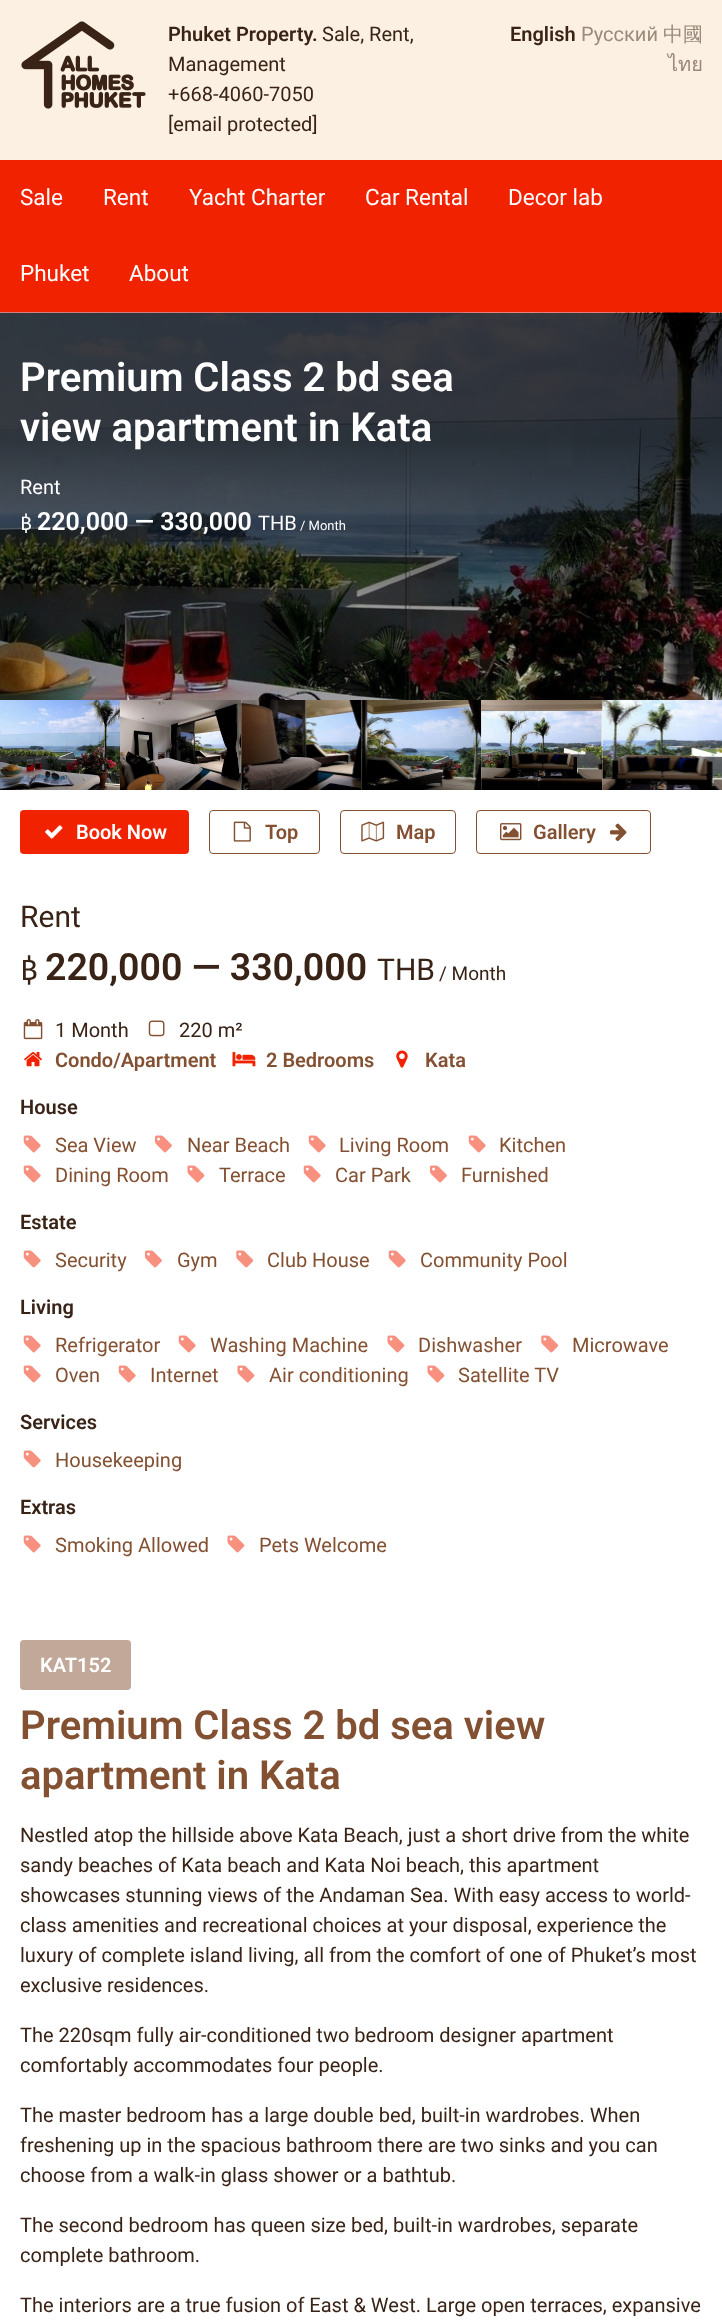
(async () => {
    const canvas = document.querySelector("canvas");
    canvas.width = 722;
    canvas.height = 2322;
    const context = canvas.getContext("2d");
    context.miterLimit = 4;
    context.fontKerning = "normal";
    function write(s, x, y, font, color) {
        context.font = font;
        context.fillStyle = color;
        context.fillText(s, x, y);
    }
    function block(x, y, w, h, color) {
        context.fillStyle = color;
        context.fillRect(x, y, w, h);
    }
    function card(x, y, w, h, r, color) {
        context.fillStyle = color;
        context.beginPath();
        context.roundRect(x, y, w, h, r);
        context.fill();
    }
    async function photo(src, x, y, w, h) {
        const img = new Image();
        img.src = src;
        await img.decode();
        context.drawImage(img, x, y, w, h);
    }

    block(0, 0, 722, 2322, "rgb(252, 240, 226)");
    await photo("media/1.png", 21, 21, 125, 88);
    write("Phuket Property.", 168, 41, "600 20px Roboto", "rgb(57, 35, 22)");
    write("Sale, Rent,", 322, 41, "20px Roboto", "rgb(57, 35, 22)");
    write("Management", 168, 71, "20px Roboto", "rgb(57, 35, 22)");
    write("+668-4060-7050", 168, 101, "20px Roboto", "rgb(57, 35, 22)");
    write("[email protected]", 168, 131, "20px Roboto", "rgb(57, 35, 22)");
    write("English", 510, 41, "600 20px Roboto", "rgb(57, 35, 22)");
    write("Русский", 581, 41, "20px Roboto", "rgb(155, 138, 124)");
    write("中國", 663, 41, "500 20px WenQuanYi Zen Hei", "rgb(155, 138, 124)");
    write("ไทย", 668, 71, "20px Loma", "rgb(155, 138, 124)");
    block(0, 160, 722, 153, "rgb(240, 34, 0)");
    write("Sale", 20, 205, "22.5px Roboto", "rgb(255, 255, 255)");
    write("Rent", 103, 205, "22.5px Roboto", "rgb(255, 255, 255)");
    write("Yacht Charter", 189, 205, "22.5px Roboto", "rgb(255, 255, 255)");
    write("Car Rental", 365, 205, "22.5px Roboto", "rgb(255, 255, 255)");
    write("Decor lab", 508, 205, "22.5px Roboto", "rgb(255, 255, 255)");
    write("Phuket", 20, 281, "22.5px Roboto", "rgb(255, 255, 255)");
    write("About", 129, 281, "22.5px Roboto", "rgb(255, 255, 255)");
    await photo("media/2.png", 0, 312, 722, 388);
    write("Premium Class 2 bd sea", 20, 391, "600 40px Roboto", "rgb(255, 255, 255)");
    write("view apartment in Kata", 20, 441, "600 40px Roboto", "rgb(255, 255, 255)");
    write("Rent", 20, 494, "20px Roboto", "rgb(255, 255, 255)");
    write("฿", 20, 530, "20px Fira Sans", "rgb(255, 255, 255)");
    write("220,000 — 330,000", 37, 530, "600 25px Roboto", "rgb(255, 255, 255)");
    write("THB", 258, 530, "20px Roboto", "rgb(255, 255, 255)");
    write("/ Month", 300, 530, "13px Roboto", "rgb(255, 255, 255)");
    await photo("media/3.png", 0, 700, 120, 90);
    await photo("media/4.png", 120, 700, 122, 90);
    await photo("media/5.png", 241, 700, 121, 90);
    await photo("media/6.png", 361, 700, 121, 90);
    await photo("media/7.png", 481, 700, 122, 90);
    await photo("media/8.png", 602, 700, 120, 90);
    block(0, 790, 722, 1532, "rgb(255, 255, 255)");
    card(20, 810, 169, 44, 4, "rgb(240, 34, 0)");
    await photo("media/9.png", 45, 825, 18, 14);
    write("Book Now", 76, 839, "600 20px Roboto", "rgb(255, 255, 255)");
    context.beginPath();
    context.roundRect(209.5, 810.5, 110, 43, 3.5);
    context.strokeStyle = "rgb(131, 80, 50)";
    context.stroke();
    await photo("media/10.png", 233, 821, 18, 21);
    write("Top", 265, 839, "600 20px Roboto", "rgb(131, 80, 50)");
    context.beginPath();
    context.roundRect(340.5, 810.5, 115, 43, 3.5);
    context.stroke();
    await photo("media/11.png", 361, 821, 24, 21);
    write("Map", 396, 839, "600 20px Roboto", "rgb(131, 80, 50)");
    context.beginPath();
    context.roundRect(476.5, 810.5, 174, 43, 3.5);
    context.stroke();
    await photo("media/12.png", 500, 823, 22, 18);
    write("Gallery", 533, 839, "600 20px Roboto", "rgb(131, 80, 50)");
    await photo("media/13.png", 610, 823, 17, 18);
    write("Rent", 20, 927, "30px Roboto", "rgb(57, 35, 22)");
    write("฿", 20, 980, "30px Fira Sans", "rgb(57, 35, 22)");
    write("220,000 — 330,000", 45, 980, "600 37.5px Roboto", "rgb(57, 35, 22)");
    write("THB", 377, 980, "30px Roboto", "rgb(57, 35, 22)");
    write("/ Month", 439, 980, "19px Roboto", "rgb(57, 35, 22)");
    await photo("media/14.png", 23, 1019, 20, 21);
    write("1 Month", 55, 1037, "20px Roboto", "rgb(57, 35, 22)");
    await photo("media/15.png", 148, 1020, 17, 17);
    write("220 m²", 179, 1037, "20px Roboto", "rgb(57, 35, 22)");
    await photo("media/16.png", 24, 1051, 18, 16);
    write("Condo/Apartment", 55, 1067, "600 20px Roboto", "rgb(131, 80, 50)");
    await photo("media/17.png", 232, 1051, 24, 16);
    write("2 Bedrooms", 266, 1067, "600 20px Roboto", "rgb(131, 80, 50)");
    await photo("media/18.png", 396, 1050, 12, 18);
    write("Kata", 425, 1067, "600 20px Roboto", "rgb(131, 80, 50)");
    write("House", 20, 1114, "600 20px Roboto", "rgb(57, 35, 22)");
    await photo("media/19.png", 23, 1135, 18, 18);
    write("Sea View", 55, 1152, "20px Roboto", "rgb(131, 80, 50)");
    await photo("media/20.png", 155, 1135, 17, 18);
    write("Near Beach", 187, 1152, "20px Roboto", "rgb(131, 80, 50)");
    await photo("media/19.png", 308, 1135, 18, 18);
    write("Living Room", 339, 1152, "20px Roboto", "rgb(131, 80, 50)");
    await photo("media/19.png", 468, 1135, 18, 18);
    write("Kitchen", 499, 1152, "20px Roboto", "rgb(131, 80, 50)");
    await photo("media/19.png", 23, 1165, 18, 18);
    write("Dining Room", 55, 1182, "20px Roboto", "rgb(131, 80, 50)");
    await photo("media/21.png", 187, 1165, 18, 18);
    write("Terrace", 219, 1182, "20px Roboto", "rgb(131, 80, 50)");
    await photo("media/19.png", 303, 1165, 18, 18);
    write("Car Park", 335, 1182, "20px Roboto", "rgb(131, 80, 50)");
    await photo("media/20.png", 430, 1165, 17, 18);
    write("Furnished", 461, 1182, "20px Roboto", "rgb(131, 80, 50)");
    write("Estate", 20, 1229, "600 20px Roboto", "rgb(57, 35, 22)");
    await photo("media/19.png", 23, 1250, 18, 18);
    write("Security", 55, 1267, "20px Roboto", "rgb(131, 80, 50)");
    await photo("media/20.png", 145, 1250, 17, 18);
    write("Gym", 177, 1267, "20px Roboto", "rgb(131, 80, 50)");
    await photo("media/22.png", 236, 1250, 18, 18);
    write("Club House", 267, 1267, "20px Roboto", "rgb(131, 80, 50)");
    await photo("media/19.png", 388, 1250, 18, 18);
    write("Community Pool", 420, 1267, "20px Roboto", "rgb(131, 80, 50)");
    write("Living", 20, 1314, "600 20px Roboto", "rgb(57, 35, 22)");
    await photo("media/19.png", 23, 1335, 18, 18);
    write("Refrigerator", 55, 1352, "20px Roboto", "rgb(131, 80, 50)");
    await photo("media/19.png", 178, 1335, 18, 18);
    write("Washing Machine", 210, 1352, "20px Roboto", "rgb(131, 80, 50)");
    await photo("media/21.png", 387, 1335, 18, 18);
    write("Dishwasher", 418, 1352, "20px Roboto", "rgb(131, 80, 50)");
    await photo("media/22.png", 541, 1335, 18, 18);
    write("Microwave", 572, 1352, "20px Roboto", "rgb(131, 80, 50)");
    await photo("media/19.png", 23, 1365, 18, 18);
    write("Oven", 55, 1382, "20px Roboto", "rgb(131, 80, 50)");
    await photo("media/19.png", 118, 1365, 18, 18);
    write("Internet", 150, 1382, "20px Roboto", "rgb(131, 80, 50)");
    await photo("media/21.png", 237, 1365, 18, 18);
    write("Air conditioning", 269, 1382, "20px Roboto", "rgb(131, 80, 50)");
    await photo("media/21.png", 427, 1365, 18, 18);
    write("Satellite TV", 458, 1382, "20px Roboto", "rgb(131, 80, 50)");
    write("Services", 20, 1429, "600 20px Roboto", "rgb(57, 35, 22)");
    await photo("media/19.png", 23, 1450, 18, 18);
    write("Housekeeping", 55, 1467, "20px Roboto", "rgb(131, 80, 50)");
    write("Extras", 20, 1514, "600 20px Roboto", "rgb(57, 35, 22)");
    await photo("media/19.png", 23, 1535, 18, 18);
    write("Smoking Allowed", 55, 1552, "20px Roboto", "rgb(131, 80, 50)");
    await photo("media/21.png", 227, 1535, 18, 18);
    write("Pets Welcome", 259, 1552, "20px Roboto", "rgb(131, 80, 50)");
    card(20, 1640, 111, 50, 4, "rgb(193, 168, 153)");
    write("KAT152", 40, 1672, "600 20px Roboto", "rgb(255, 255, 255)");
    write("Premium Class 2 bd sea view", 20, 1739, "600 40px Roboto", "rgb(131, 80, 50)");
    write("apartment in Kata", 20, 1789, "600 40px Roboto", "rgb(131, 80, 50)");
    write("Nestled atop the hillside above Kata Beach, just a short drive from the white", 20, 1842, "20px Roboto", "rgb(57, 35, 22)");
    write("sandy beaches of Kata beach and Kata Noi beach, this apartment", 20, 1872, "20px Roboto", "rgb(57, 35, 22)");
    write("showcases stunning views of the Andaman Sea. With easy access to world-", 20, 1902, "20px Roboto", "rgb(57, 35, 22)");
    write("class amenities and recreational choices at your disposal, experience the", 20, 1932, "20px Roboto", "rgb(57, 35, 22)");
    write("luxury of complete island living, all from the comfort of one of Phuket’s most", 20, 1962, "20px Roboto", "rgb(57, 35, 22)");
    write("exclusive residences.", 20, 1992, "20px Roboto", "rgb(57, 35, 22)");
    write("The 220sqm fully air-conditioned two bedroom designer apartment", 20, 2042, "20px Roboto", "rgb(57, 35, 22)");
    write("comfortably accommodates four people.", 20, 2072, "20px Roboto", "rgb(57, 35, 22)");
    write("The master bedroom has a large double bed, built-in wardrobes. When", 20, 2122, "20px Roboto", "rgb(57, 35, 22)");
    write("freshening up in the spacious bathroom there are two sinks and you can", 20, 2152, "20px Roboto", "rgb(57, 35, 22)");
    write("choose from a walk-in glass shower or a bathtub.", 20, 2182, "20px Roboto", "rgb(57, 35, 22)");
    write("The second bedroom has queen size bed, built-in wardrobes, separate", 20, 2232, "20px Roboto", "rgb(57, 35, 22)");
    write("complete bathroom.", 20, 2262, "20px Roboto", "rgb(57, 35, 22)");
    write("The interiors are a true fusion of East & West. Large open terraces, expansive", 20, 2312, "20px Roboto", "rgb(57, 35, 22)");
})();
